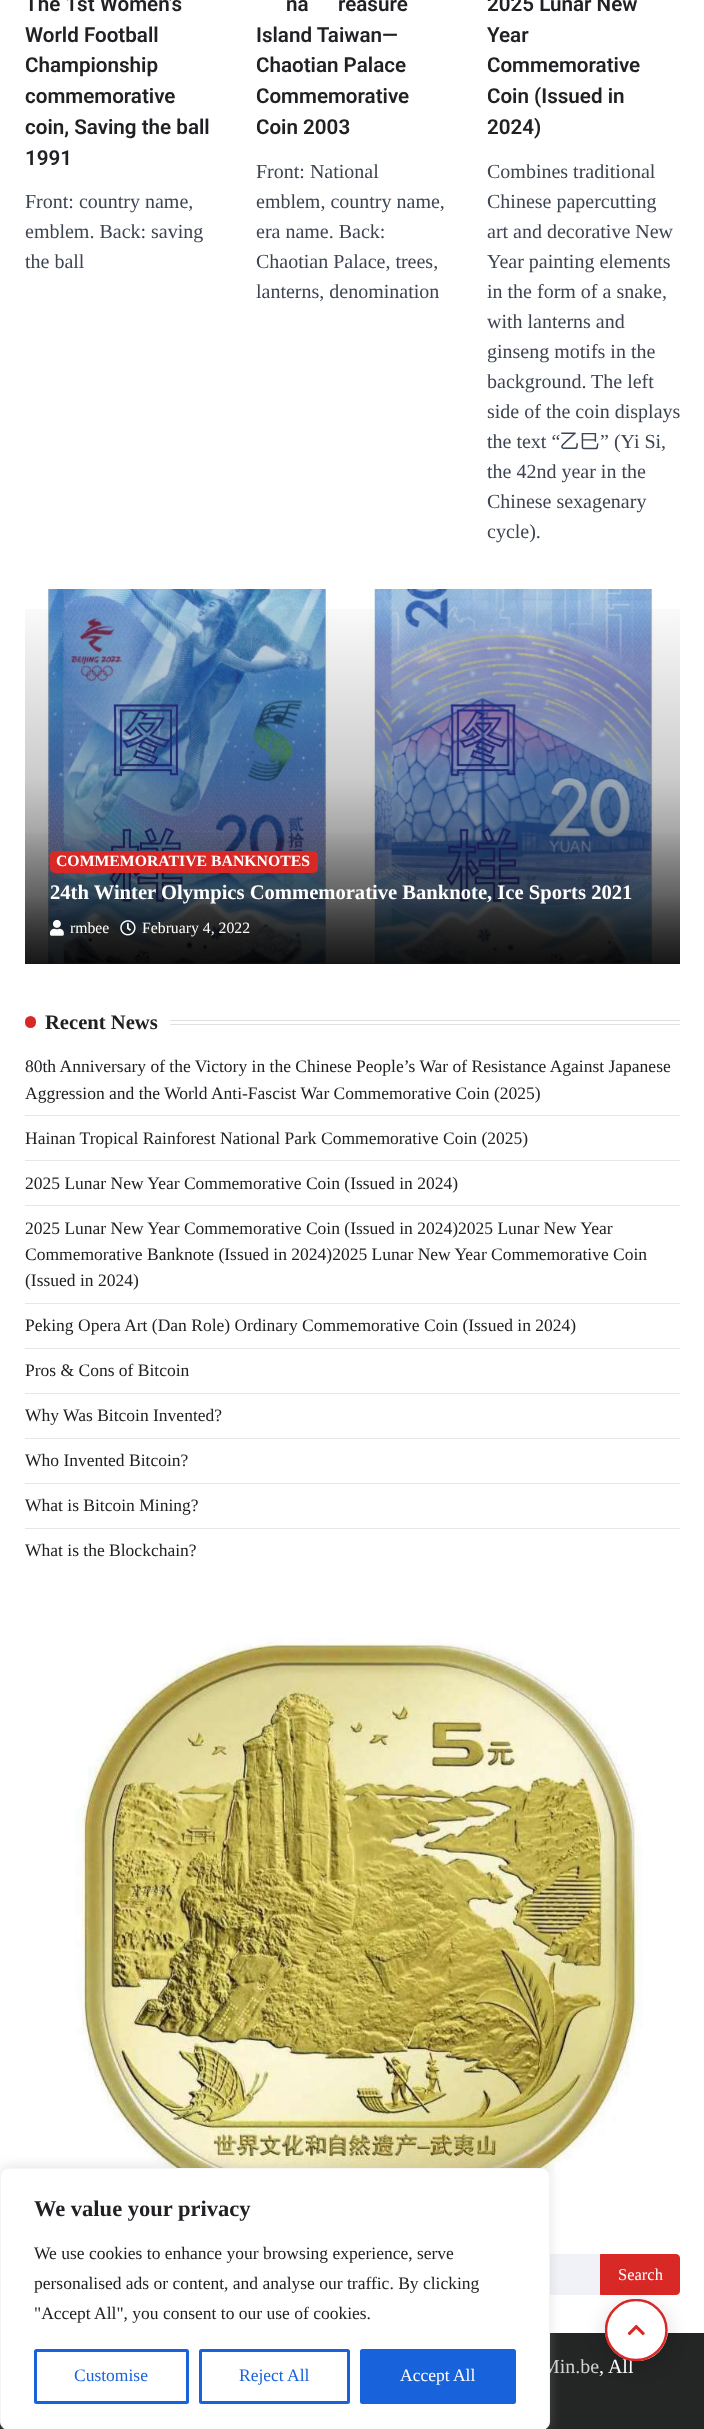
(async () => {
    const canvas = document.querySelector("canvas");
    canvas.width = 704;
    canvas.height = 2429;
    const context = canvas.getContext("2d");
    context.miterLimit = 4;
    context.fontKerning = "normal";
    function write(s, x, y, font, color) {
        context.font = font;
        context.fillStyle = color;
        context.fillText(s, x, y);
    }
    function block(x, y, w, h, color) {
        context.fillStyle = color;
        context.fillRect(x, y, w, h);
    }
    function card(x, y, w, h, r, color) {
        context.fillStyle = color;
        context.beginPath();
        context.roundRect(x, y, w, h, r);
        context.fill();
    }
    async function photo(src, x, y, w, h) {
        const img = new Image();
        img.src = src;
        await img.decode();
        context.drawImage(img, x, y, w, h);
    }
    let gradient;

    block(0, 0, 704, 2429, "rgb(255, 255, 255)");
    write("The 1st Women’s", 25, 11, "600 20.6px Roboto", "rgb(32, 33, 36)");
    write("World Football", 25, 42, "600 20.6px Roboto", "rgb(32, 33, 36)");
    write("Championship", 25, 72, "600 20.6px Roboto", "rgb(32, 33, 36)");
    write("commemorative", 25, 103, "600 20.6px Roboto", "rgb(32, 33, 36)");
    write("coin, Saving the ball", 25, 134, "600 20.6px Roboto", "rgb(32, 33, 36)");
    write("1991", 25, 165, "600 20.6px Roboto", "rgb(32, 33, 36)");
    write("Front: country name,", 25, 208, "20px Liberation Serif", "rgb(61, 68, 82)");
    write("emblem. Back: saving", 25, 238, "20px Liberation Serif", "rgb(61, 68, 82)");
    write("the ball", 25, 268, "20px Liberation Serif", "rgb(61, 68, 82)");
    write("na", 286, 11, "600 20.6px Roboto", "rgb(32, 33, 36)");
    write("reasure", 338, 11, "600 20.6px Roboto", "rgb(32, 33, 36)");
    write("Island Taiwan—", 256, 42, "600 20.6px Roboto", "rgb(32, 33, 36)");
    write("Chaotian Palace", 256, 72, "600 20.6px Roboto", "rgb(32, 33, 36)");
    write("Commemorative", 256, 103, "600 20.6px Roboto", "rgb(32, 33, 36)");
    write("Coin 2003", 256, 134, "600 20.6px Roboto", "rgb(32, 33, 36)");
    write("Front: National", 256, 178, "20px Liberation Serif", "rgb(61, 68, 82)");
    write("emblem, country name,", 256, 208, "20px Liberation Serif", "rgb(61, 68, 82)");
    write("era name. Back:", 256, 238, "20px Liberation Serif", "rgb(61, 68, 82)");
    write("Chaotian Palace, trees,", 256, 268, "20px Liberation Serif", "rgb(61, 68, 82)");
    write("lanterns, denomination", 256, 298, "20px Liberation Serif", "rgb(61, 68, 82)");
    write("2025 Lunar New", 487, 11, "600 20.6px Roboto", "rgb(32, 33, 36)");
    write("Year", 487, 42, "600 20.6px Roboto", "rgb(32, 33, 36)");
    write("Commemorative", 487, 72, "600 20.6px Roboto", "rgb(32, 33, 36)");
    write("Coin (Issued in", 487, 103, "600 20.6px Roboto", "rgb(32, 33, 36)");
    write("2024)", 487, 134, "600 20.6px Roboto", "rgb(32, 33, 36)");
    write("Combines traditional", 487, 178, "20px Liberation Serif", "rgb(61, 68, 82)");
    write("Chinese papercutting", 487, 208, "20px Liberation Serif", "rgb(61, 68, 82)");
    write("art and decorative New", 487, 238, "20px Liberation Serif", "rgb(61, 68, 82)");
    write("Year painting elements", 487, 268, "20px Liberation Serif", "rgb(61, 68, 82)");
    write("in the form of a snake,", 487, 298, "20px Liberation Serif", "rgb(61, 68, 82)");
    write("with lanterns and", 487, 328, "20px Liberation Serif", "rgb(61, 68, 82)");
    write("ginseng motifs in the", 487, 358, "20px Liberation Serif", "rgb(61, 68, 82)");
    write("background. The left", 487, 388, "20px Liberation Serif", "rgb(61, 68, 82)");
    write("side of the coin displays", 487, 418, "20px Liberation Serif", "rgb(61, 68, 82)");
    write("the text “", 487, 448, "20px Liberation Serif", "rgb(61, 68, 82)");
    write("乙巳", 560, 448, "500 20px WenQuanYi Zen Hei", "rgb(61, 68, 82)");
    write("” (Yi Si,", 600, 448, "20px Liberation Serif", "rgb(61, 68, 82)");
    write("the 42nd year in the", 487, 478, "20px Liberation Serif", "rgb(61, 68, 82)");
    write("Chinese sexagenary", 487, 508, "20px Liberation Serif", "rgb(61, 68, 82)");
    write("cycle).", 487, 538, "20px Liberation Serif", "rgb(61, 68, 82)");
    block(25, 589, 655, 375, "rgb(240, 242, 247)");
    await photo("media/1.png", 25, 589, 655, 375);
    gradient = context.createLinearGradient(353, 964, 353, 589);
    gradient.addColorStop(0, "rgba(0, 0, 0, 0.7)");
    gradient.addColorStop(0.5, "rgba(0, 0, 0, 0.2)");
    gradient.addColorStop(1, "rgba(0, 0, 0, 0)");
    context.fillStyle = gradient;
    context.fillRect(25, 609, 655, 355);
    gradient = context.createLinearGradient(353, 964, 353, 826);
    gradient.addColorStop(0, "rgba(0, 0, 0, 0.7)");
    gradient.addColorStop(0.5, "rgba(0, 0, 0, 0.2)");
    gradient.addColorStop(1, "rgba(0, 0, 0, 0)");
    context.fillStyle = gradient;
    context.fillRect(25, 833, 655, 131);
    card(50, 851, 268, 22, 5, "rgb(216, 41, 38)");
    write("COMMEMORATIVE BANKNOTES", 56, 866, "bold 15.75px Liberation Serif", "rgb(255, 255, 255)");
    write("24th Winter Olympics Commemorative Banknote, Ice Sports 2021", 50, 899, "bold 20.6px Liberation Serif", "rgb(255, 255, 255)");
    await photo("media/2.png", 50, 919, 14, 17);
    write("rmbee", 70, 933, "15.75px Liberation Serif", "rgb(255, 255, 255)");
    await photo("media/3.png", 120, 920, 16, 16);
    write("February 4, 2022", 142, 933, "15.75px Liberation Serif", "rgb(255, 255, 255)");
    card(25, 1016, 11, 12, 5.5, "rgb(216, 41, 38)");
    write("Recent News", 45, 1029, "bold 20.6px Liberation Serif", "rgb(32, 33, 36)");
    block(170, 1020, 510, 1, "rgb(225, 225, 225)");
    block(170, 1024, 510, 1, "rgb(225, 225, 225)");
    block(25, 1115, 655, 1, "rgb(230, 230, 230)");
    write("80th Anniversary of the Victory in the Chinese People’s War of Resistance Against Japanese", 25, 1072, "17.5px Liberation Serif", "rgb(32, 33, 36)");
    write("Aggression and the World Anti-Fascist War Commemorative Coin (2025)", 25, 1099, "17.5px Liberation Serif", "rgb(32, 33, 36)");
    block(25, 1160, 655, 1, "rgb(230, 230, 230)");
    write("Hainan Tropical Rainforest National Park Commemorative Coin (2025)", 25, 1144, "17.5px Liberation Serif", "rgb(32, 33, 36)");
    block(25, 1205, 655, 1, "rgb(230, 230, 230)");
    write("2025 Lunar New Year Commemorative Coin (Issued in 2024)", 25, 1189, "17.5px Liberation Serif", "rgb(32, 33, 36)");
    block(25, 1303, 655, 1, "rgb(230, 230, 230)");
    write("2025 Lunar New Year Commemorative Coin (Issued in 2024)2025 Lunar New Year", 25, 1234, "17.5px Liberation Serif", "rgb(32, 33, 36)");
    write("Commemorative Banknote (Issued in 2024)2025 Lunar New Year Commemorative Coin", 25, 1260, "17.5px Liberation Serif", "rgb(32, 33, 36)");
    write("(Issued in 2024)", 25, 1286, "17.5px Liberation Serif", "rgb(32, 33, 36)");
    block(25, 1348, 655, 1, "rgb(230, 230, 230)");
    write("Peking Opera Art (Dan Role) Ordinary Commemorative Coin (Issued in 2024)", 25, 1331, "17.5px Liberation Serif", "rgb(32, 33, 36)");
    block(25, 1393, 655, 1, "rgb(230, 230, 230)");
    write("Pros & Cons of Bitcoin", 25, 1376, "17.5px Liberation Serif", "rgb(32, 33, 36)");
    block(25, 1438, 655, 1, "rgb(230, 230, 230)");
    write("Why Was Bitcoin Invented?", 25, 1421, "17.5px Liberation Serif", "rgb(32, 33, 36)");
    block(25, 1483, 655, 1, "rgb(230, 230, 230)");
    write("Who Invented Bitcoin?", 25, 1466, "17.5px Liberation Serif", "rgb(32, 33, 36)");
    block(25, 1528, 655, 1, "rgb(230, 230, 230)");
    write("What is Bitcoin Mining?", 25, 1511, "17.5px Liberation Serif", "rgb(32, 33, 36)");
    write("What is the Blockchain?", 25, 1556, "17.5px Liberation Serif", "rgb(32, 33, 36)");
    await photo("media/4.png", 75, 1637, 568, 574);
    block(550, 2254, 50, 41, "rgb(240, 242, 247)");
    context.fillStyle = "rgb(216, 41, 38)";
    context.beginPath();
    context.roundRect(600.5, 2254.5, 79, 40, [0, 3.5, 3.5, 0]);
    context.fill();
    context.strokeStyle = "rgb(216, 41, 38)";
    context.stroke();
    write("Search", 618, 2280, "16.5px Liberation Serif", "rgb(255, 255, 255)");
    block(0, 2333, 704, 96, "rgb(36, 37, 37)");
    context.fillStyle = "rgba(172, 171, 171, 0.3)";
    context.filter = "blur(6px)";
    context.beginPath();
    context.roundRect(0, 2166, 550, 263, 8);
    context.fill();
    context.filter = "none";
    write("Min.be", 542, 2373, "20px Liberation Serif", "rgb(211, 211, 211)");
    context.fillStyle = "rgb(255, 255, 255)";
    context.beginPath();
    context.roundRect(0.5, 2168.5, 549, 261, 7.5);
    context.fill();
    context.strokeStyle = "rgb(244, 244, 244)";
    context.stroke();
    write("We value your privacy", 34, 2216, "bold 22.5px Liberation Serif", "rgb(32, 33, 36)");
    write("We use cookies to enhance your browsing experience, serve", 34, 2259, "17.5px Liberation Serif", "rgb(32, 33, 36)");
    write("personalised ads or content, and analyse our traffic. By clicking", 34, 2289, "17.5px Liberation Serif", "rgb(32, 33, 36)");
    write("\"Accept All\", you consent to our use of cookies.", 34, 2319, "17.5px Liberation Serif", "rgb(32, 33, 36)");
    context.beginPath();
    context.roundRect(35.5, 2350.5, 152, 52, 1);
    context.strokeStyle = "rgb(24, 99, 220)";
    context.lineWidth = 3;
    context.stroke();
    write("Customise", 74, 2381, "17.5px Liberation Serif", "rgb(24, 99, 220)");
    context.beginPath();
    context.roundRect(200.5, 2350.5, 148, 52, 1);
    context.stroke();
    write("Reject All", 239, 2381, "17.5px Liberation Serif", "rgb(24, 99, 220)");
    context.beginPath();
    context.roundRect(361.5, 2350.5, 153, 52, 1);
    context.fill();
    context.stroke();
    write("Accept All", 400, 2381, "17.5px Liberation Serif", "rgb(255, 255, 255)");
    context.fillStyle = "rgba(0, 0, 0, 0.15)";
    context.filter = "blur(10px)";
    context.beginPath();
    context.roundRect(605, 2303, 63, 62, 31);
    context.fill();
    context.filter = "none";
    card(605, 2299, 63, 62, 31, "rgb(255, 255, 255)");
    await photo("media/5.png", 627, 2324, 18, 12);
    write(", All", 599, 2373, "20px Liberation Serif", "rgb(255, 255, 255)");
    context.save();
    context.beginPath();
    context.rect(605, 2299, 63, 62);
    context.clip();
    context.beginPath();
    context.moveTo(636, 2300);
    context.bezierCurveTo(653, 2300, 666.5, 2313.5, 666.5, 2330);
    context.bezierCurveTo(666.5, 2346.5, 653, 2360, 636, 2360);
    context.bezierCurveTo(619.5, 2360, 606, 2346.5, 606, 2330);
    context.bezierCurveTo(606, 2313.5, 619.5, 2300, 636, 2300);
    context.strokeStyle = "rgb(216, 41, 38)";
    context.lineWidth = 2.5;
    context.stroke();
    context.restore();
})();
